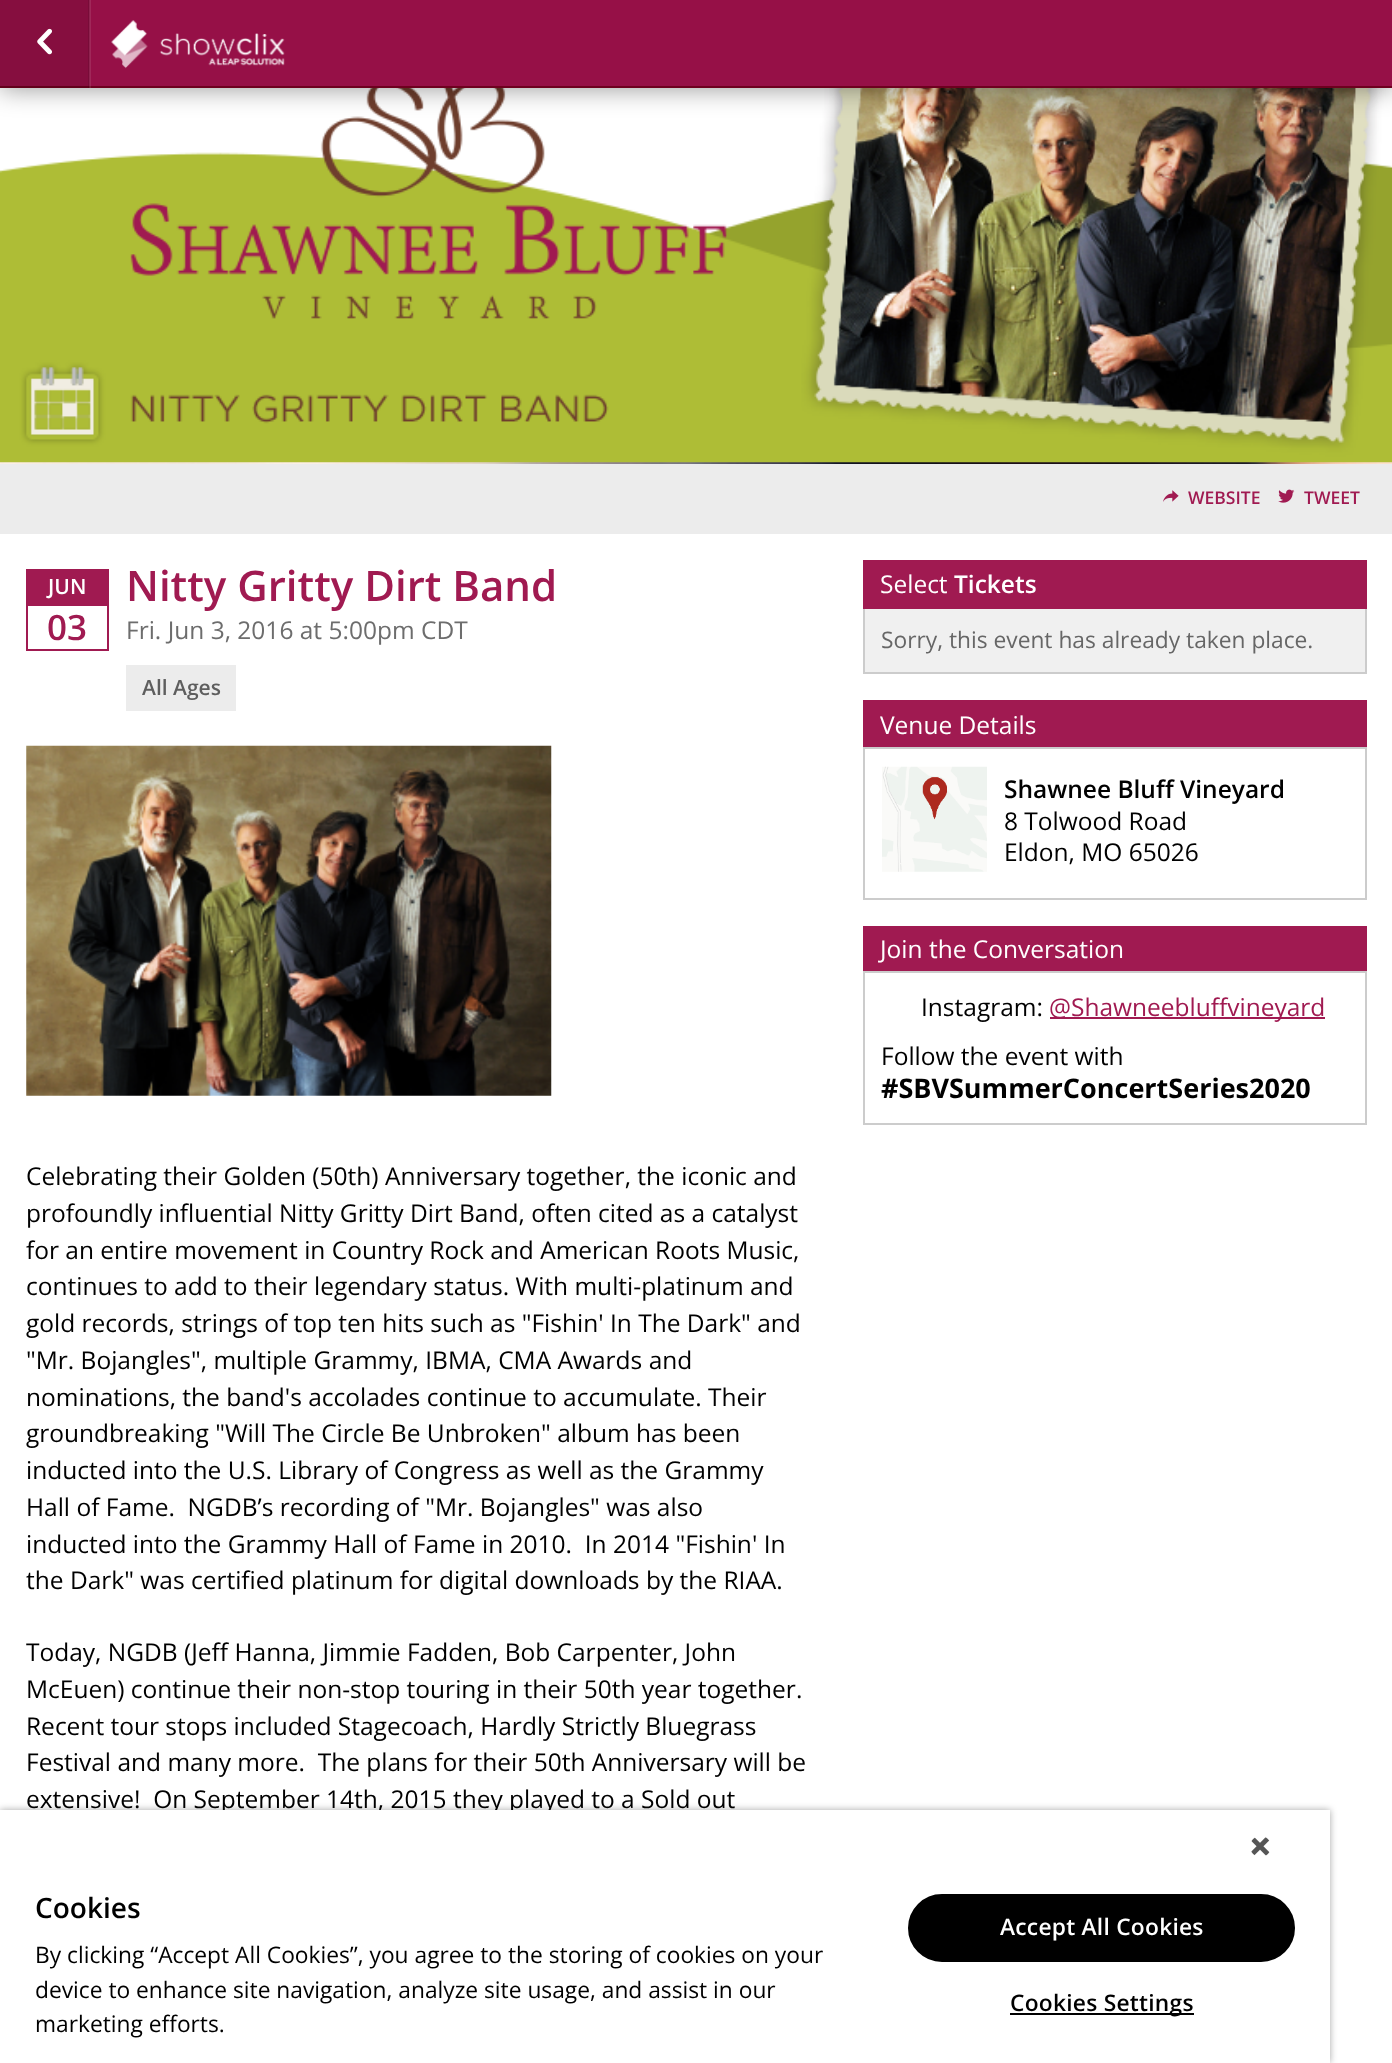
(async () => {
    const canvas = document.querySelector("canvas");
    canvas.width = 1392;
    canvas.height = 2063;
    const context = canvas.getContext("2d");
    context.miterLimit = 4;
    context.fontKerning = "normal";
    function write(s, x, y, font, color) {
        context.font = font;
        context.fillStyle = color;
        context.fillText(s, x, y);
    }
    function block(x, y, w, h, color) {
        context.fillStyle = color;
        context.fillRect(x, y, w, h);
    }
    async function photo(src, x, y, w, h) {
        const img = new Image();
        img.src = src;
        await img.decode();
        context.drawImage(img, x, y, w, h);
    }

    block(0, 0, 1392, 2063, "rgb(255, 255, 255)");
    await photo("media/1.png", 0, 462, 1392, 2);
    await photo("media/4.png", 0, 88, 1392, 375);
    context.fillStyle = "rgba(0, 0, 0, 0.4)";
    context.filter = "blur(13px)";
    context.beginPath();
    context.rect(0, 2, 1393, 87);
    context.fill();
    context.filter = "none";
    block(0, 0, 1392, 86, "rgb(150, 16, 71)");
    block(0, 86, 1392, 2, "rgb(110, 0, 31)");
    block(89, 0, 2, 88, "rgba(255, 255, 255, 0.1)");
    block(0, 0, 89, 88, "rgba(0, 0, 0, 0.1)");
    block(88, 0, 2, 88, "rgba(0, 0, 0, 0.1)");
    await photo("media/2.png", 37, 28, 15, 27);
    await photo("media/3.png", 111, 20, 174, 49);
    block(0, 464, 1392, 70, "rgb(236, 236, 236)");
    await photo("media/5.png", 1163, 490, 16, 12);
    write("WEBSITE", 1188, 504, "600 17.5px Open Sans", "rgb(160, 26, 81)");
    await photo("media/6.png", 1278, 489, 17, 14);
    write("TWEET", 1304, 504, "600 17.5px Open Sans", "rgb(160, 26, 81)");
    context.strokeStyle = "rgb(160, 26, 81)";
    context.lineWidth = 2;
    context.strokeRect(27, 570, 81, 80);
    block(28, 571, 79, 35, "rgb(160, 26, 81)");
    write("JUN", 48, 594, "600 21px Open Sans", "rgb(255, 255, 255)");
    write("03", 47, 640, "600 35px Open Sans", "rgb(160, 26, 81)");
    write("Nitty Gritty Dirt Band", 126, 601, "600 42px Open Sans", "rgb(160, 26, 81)");
    write("Fri. Jun 3, 2016 at 5:00pm CDT", 126, 639, "24.5px Open Sans", "rgb(109, 109, 109)");
    block(126, 665, 110, 46, "rgb(236, 236, 236)");
    write("All Ages", 142, 695, "600 21px Open Sans", "rgb(94, 94, 94)");
    await photo("media/7.png", 26, 745, 526, 351);
    write("Celebrating their Golden (50th) Anniversary together, the iconic and", 26, 1185, "24.5px Open Sans", "rgb(0, 0, 0)");
    write("profoundly influential Nitty Gritty Dirt Band, often cited as a catalyst", 26, 1222, "24.5px Open Sans", "rgb(0, 0, 0)");
    write("for an entire movement in Country Rock and American Roots Music,", 26, 1259, "24.5px Open Sans", "rgb(0, 0, 0)");
    write("continues to add to their legendary status. With multi-platinum and", 26, 1295, "24.5px Open Sans", "rgb(0, 0, 0)");
    write("gold records, strings of top ten hits such as \"Fishin' In The Dark\" and", 26, 1332, "24.5px Open Sans", "rgb(0, 0, 0)");
    write("\"Mr. Bojangles\", multiple Grammy, IBMA, CMA Awards and", 26, 1369, "24.5px Open Sans", "rgb(0, 0, 0)");
    write("nominations, the band's accolades continue to accumulate. Their", 26, 1406, "24.5px Open Sans", "rgb(0, 0, 0)");
    write("groundbreaking \"Will The Circle Be Unbroken\" album has been", 26, 1442, "24.5px Open Sans", "rgb(0, 0, 0)");
    write("inducted into the U.S. Library of Congress as well as the Grammy", 26, 1479, "24.5px Open Sans", "rgb(0, 0, 0)");
    write("Hall of Fame.  NGDB’s recording of \"Mr. Bojangles\" was also", 26, 1516, "24.5px Open Sans", "rgb(0, 0, 0)");
    write("inducted into the Grammy Hall of Fame in 2010.  In 2014 \"Fishin' In", 26, 1553, "24.5px Open Sans", "rgb(0, 0, 0)");
    write("the Dark\" was certified platinum for digital downloads by the RIAA.", 26, 1589, "24.5px Open Sans", "rgb(0, 0, 0)");
    write("Today, NGDB (Jeff Hanna, Jimmie Fadden, Bob Carpenter, John", 26, 1661, "24.5px Open Sans", "rgb(0, 0, 0)");
    write("McEuen) continue their non-stop touring in their 50th year together.", 26, 1698, "24.5px Open Sans", "rgb(0, 0, 0)");
    write("Recent tour stops included Stagecoach, Hardly Strictly Bluegrass", 26, 1735, "24.5px Open Sans", "rgb(0, 0, 0)");
    write("Festival and many more.  The plans for their 50th Anniversary will be", 26, 1771, "24.5px Open Sans", "rgb(0, 0, 0)");
    write("extensive!  On September 14th, 2015 they played to a Sold out", 26, 1808, "24.5px Open Sans", "rgb(0, 0, 0)");
    block(863, 560, 504, 49, "rgb(160, 26, 81)");
    write("Select", 880, 593, "24.5px Open Sans", "rgb(255, 255, 255)");
    write("Tickets", 954, 593, "600 24.5px Open Sans", "rgb(255, 255, 255)");
    block(865, 609, 500, 63, "rgb(240, 240, 240)");
    block(1365, 609, 2, 65, "rgb(204, 204, 204)");
    block(863, 672, 504, 2, "rgb(204, 204, 204)");
    block(863, 609, 2, 65, "rgb(204, 204, 204)");
    write("Sorry, this event has already taken place.", 881, 648, "22.75px Open Sans", "rgb(102, 102, 102)");
    block(863, 700, 504, 47, "rgb(160, 26, 81)");
    write("Venue Details", 880, 734, "24.5px Open Sans", "rgb(255, 255, 255)");
    context.strokeStyle = "rgb(204, 204, 204)";
    context.strokeRect(864, 748, 502, 151);
    await photo("media/8.png", 882, 766, 105, 106);
    write("Shawnee Bluff Vineyard", 1004, 798, "600 24.5px Open Sans", "rgb(0, 0, 0)");
    write("8 Tolwood Road", 1004, 830, "24.5px Open Sans", "rgb(0, 0, 0)");
    write("Eldon, MO 65026", 1004, 861, "24.5px Open Sans", "rgb(0, 0, 0)");
    block(863, 926, 504, 45, "rgb(160, 26, 81)");
    write("Join the Conversation", 880, 958, "24.5px Open Sans", "rgb(255, 255, 255)");
    context.strokeRect(864, 972, 502, 152);
    write("Instagram:", 921, 1016, "24.5px Open Sans", "rgb(0, 0, 0)");
    block(1050, 1017, 275, 2, "rgb(160, 26, 81)");
    write("@Shawneebluffvineyard", 1049, 1016, "24.5px Open Sans", "rgb(160, 26, 81)");
    write("Follow the event with", 881, 1065, "24.5px Open Sans", "rgb(0, 0, 0)");
    write("#SBVSummerConcertSeries2020", 881, 1098, "bold 27px Open Sans", "rgb(0, 0, 0)");
    context.fillStyle = "rgba(0, 0, 0, 0.35)";
    context.filter = "blur(3.5px)";
    context.beginPath();
    context.rect(0, 1810, 1330, 253);
    context.fill();
    context.filter = "none";
    block(0, 1810, 1330, 253, "rgb(255, 255, 255)");
    await photo("media/9.png", 1251, 1837, 19, 19);
    write("Cookies", 35, 1918, "600 28px Open Sans", "rgb(0, 0, 0)");
    write("By clicking “Accept All Cookies”, you agree to the storing of cookies on your", 35, 1963, "22.75px Open Sans", "rgb(0, 0, 0)");
    write("device to enhance site navigation, analyze site usage, and assist in our", 35, 1998, "22.75px Open Sans", "rgb(0, 0, 0)");
    write("marketing efforts.", 35, 2032, "22.75px Open Sans", "rgb(0, 0, 0)");
    context.beginPath();
    context.roundRect(909, 1895, 385, 66, 33);
    context.fill();
    context.strokeStyle = "rgb(0, 0, 0)";
    context.stroke();
    context.letterSpacing = "0.25px";
    write("Accept All Cookies", 1000, 1935, "600 22.75px Open Sans", "rgb(255, 255, 255)");
    block(1010, 2013, 184, 2, "rgb(0, 0, 0)");
    write("Cookies Settings", 1010, 2011, "600 22.75px Open Sans", "rgb(0, 0, 0)");
})();
